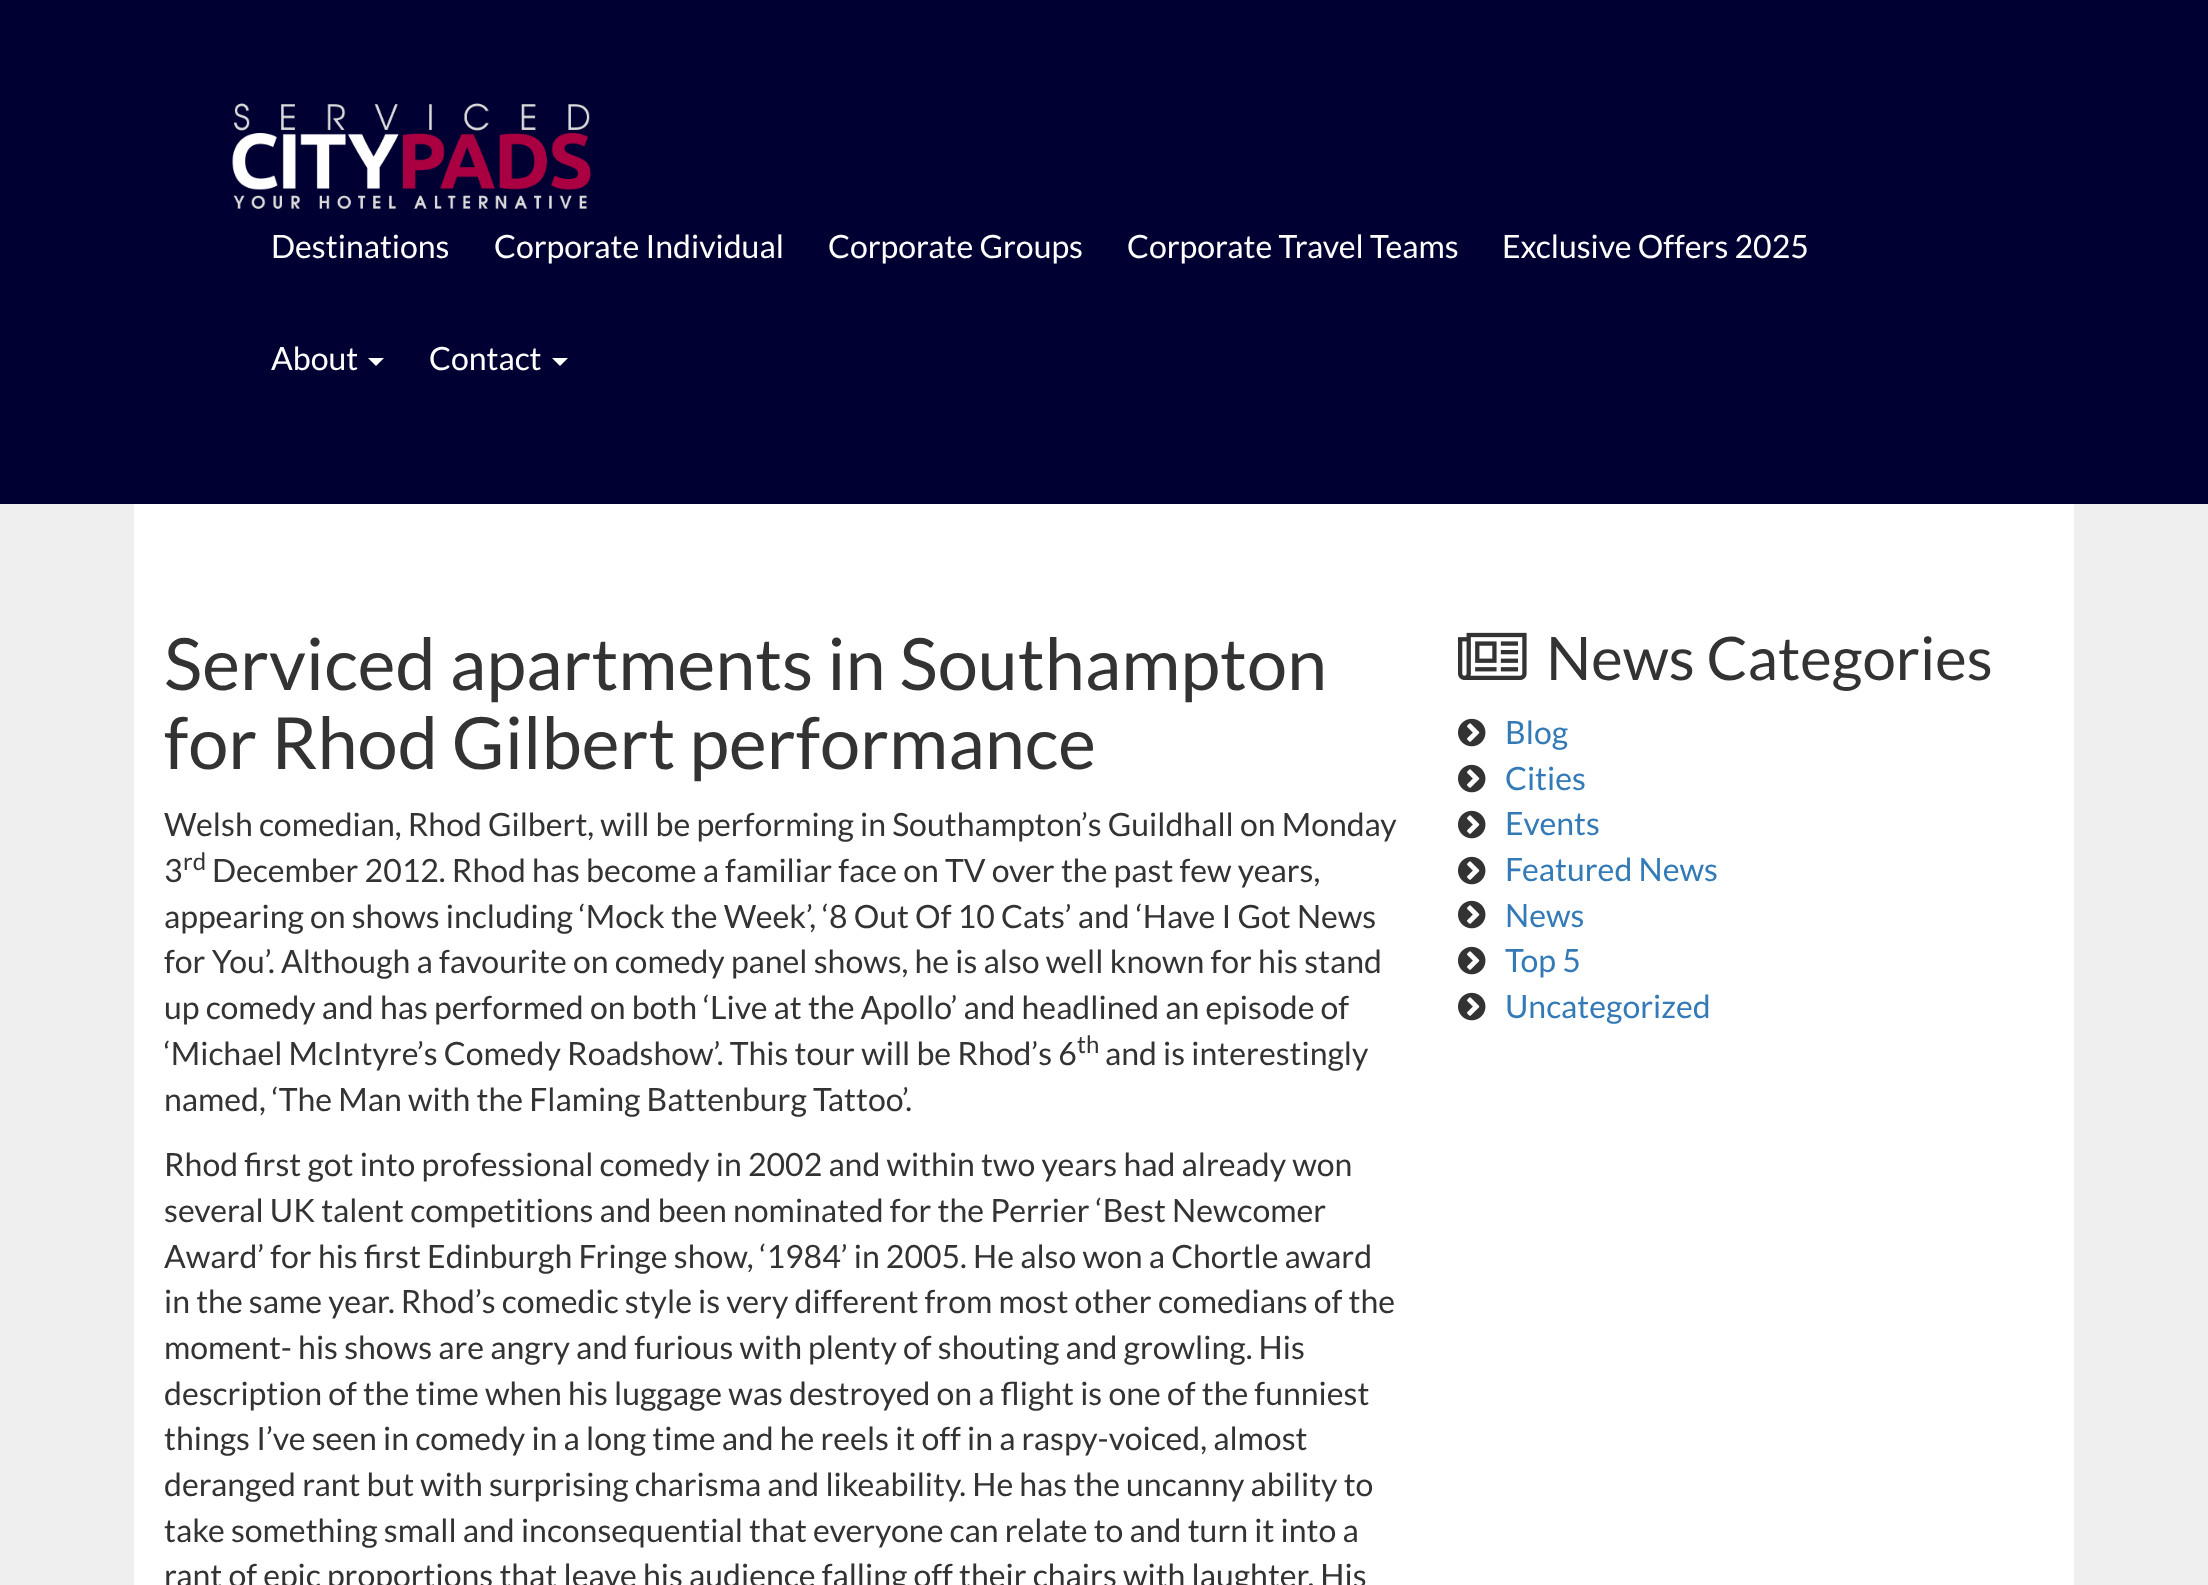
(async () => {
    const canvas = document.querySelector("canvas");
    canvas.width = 2208;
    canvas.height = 1585;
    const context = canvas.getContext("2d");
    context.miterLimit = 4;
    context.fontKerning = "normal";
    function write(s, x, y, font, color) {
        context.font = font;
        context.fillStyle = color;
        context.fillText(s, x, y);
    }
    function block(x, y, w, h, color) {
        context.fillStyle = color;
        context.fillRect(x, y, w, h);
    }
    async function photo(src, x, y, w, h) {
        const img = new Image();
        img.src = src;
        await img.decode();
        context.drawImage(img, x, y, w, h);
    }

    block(0, 0, 2208, 1585, "rgb(239, 239, 239)");
    block(0, 0, 2208, 504, "rgb(0, 0, 51)");
    await photo("media/1.png", 232, 103, 359, 106);
    write("Destinations", 271, 258, "32px Lato", "rgb(255, 255, 255)");
    write("Corporate Individual", 494, 258, "32px Lato", "rgb(255, 255, 255)");
    write("Corporate Groups", 828, 258, "32px Lato", "rgb(255, 255, 255)");
    write("Corporate Travel Teams", 1127, 258, "32px Lato", "rgb(255, 255, 255)");
    write("Exclusive Offers 2025", 1502, 258, "32px Lato", "rgb(255, 255, 255)");
    write("About", 271, 370, "32px Lato", "rgb(255, 255, 255)");
    context.beginPath();
    context.moveTo(368, 358);
    context.lineTo(384, 358);
    context.lineTo(376, 366);
    context.closePath();
    context.fill();
    write("Contact", 429, 370, "32px Lato", "rgb(255, 255, 255)");
    context.beginPath();
    context.moveTo(552, 358);
    context.lineTo(568, 358);
    context.lineTo(560, 366);
    context.closePath();
    context.fill();
    block(134, 504, 1940, 1081, "rgb(255, 255, 255)");
    write("Serviced apartments in Southampton", 164, 690, "72px Lato", "rgb(51, 51, 51)");
    write("for Rhod Gilbert performance", 164, 769, "72px Lato", "rgb(51, 51, 51)");
    write("Welsh comedian, Rhod Gilbert, will be performing in Southampton’s Guildhall on Monday", 164, 836, "32px Lato", "rgb(51, 51, 51)");
    write("3", 164, 882, "32px Lato", "rgb(51, 51, 51)");
    write("rd", 183, 870, "24px Lato", "rgb(51, 51, 51)");
    write("December 2012. Rhod has become a familiar face on TV over the past few years,", 212, 882, "32px Lato", "rgb(51, 51, 51)");
    write("appearing on shows including ‘Mock the Week’, ‘8 Out Of 10 Cats’ and ‘Have I Got News", 164, 928, "32px Lato", "rgb(51, 51, 51)");
    write("for You’. Although a favourite on comedy panel shows, he is also well known for his stand", 164, 973, "32px Lato", "rgb(51, 51, 51)");
    write("up comedy and has performed on both ‘Live at the Apollo’ and headlined an episode of", 164, 1019, "32px Lato", "rgb(51, 51, 51)");
    write("‘Michael McIntyre’s Comedy Roadshow’. This tour will be Rhod’s 6", 164, 1065, "32px Lato", "rgb(51, 51, 51)");
    write("th", 1077, 1053, "24px Lato", "rgb(51, 51, 51)");
    write("and is interestingly", 1105, 1065, "32px Lato", "rgb(51, 51, 51)");
    write("named, ‘The Man with the Flaming Battenburg Tattoo’.", 164, 1111, "32px Lato", "rgb(51, 51, 51)");
    write("Rhod first got into professional comedy in 2002 and within two years had already won", 164, 1176, "32px Lato", "rgb(51, 51, 51)");
    write("several UK talent competitions and been nominated for the Perrier ‘Best Newcomer", 164, 1222, "32px Lato", "rgb(51, 51, 51)");
    write("Award’ for his first Edinburgh Fringe show, ‘1984’ in 2005. He also won a Chortle award", 164, 1268, "32px Lato", "rgb(51, 51, 51)");
    write("in the same year. Rhod’s comedic style is very different from most other comedians of the", 164, 1313, "32px Lato", "rgb(51, 51, 51)");
    write("moment- his shows are angry and furious with plenty of shouting and growling. His", 164, 1359, "32px Lato", "rgb(51, 51, 51)");
    write("description of the time when his luggage was destroyed on a flight is one of the funniest", 164, 1405, "32px Lato", "rgb(51, 51, 51)");
    write("things I’ve seen in comedy in a long time and he reels it off in a raspy-voiced, almost", 164, 1450, "32px Lato", "rgb(51, 51, 51)");
    write("deranged rant but with surprising charisma and likeability. He has the uncanny ability to", 164, 1496, "32px Lato", "rgb(51, 51, 51)");
    write("take something small and inconsequential that everyone can relate to and turn it into a", 164, 1542, "32px Lato", "rgb(51, 51, 51)");
    write("rant of epic proportions that leave his audience falling off their chairs with laughter. His", 164, 1587, "32px Lato", "rgb(51, 51, 51)");
    await photo("media/2.png", 1458, 632, 69, 48);
    write("News Categories", 1546, 680, "60px Lato", "rgb(51, 51, 51)");
    await photo("media/3.png", 1458, 718, 28, 29);
    write("Blog", 1505, 744, "32px Lato", "rgb(51, 122, 183)");
    await photo("media/3.png", 1458, 764, 28, 29);
    write("Cities", 1505, 790, "32px Lato", "rgb(51, 122, 183)");
    await photo("media/3.png", 1458, 810, 28, 29);
    write("Events", 1505, 835, "32px Lato", "rgb(51, 122, 183)");
    await photo("media/3.png", 1458, 856, 28, 29);
    write("Featured News", 1505, 881, "32px Lato", "rgb(51, 122, 183)");
    await photo("media/3.png", 1458, 900, 28, 29);
    write("News", 1505, 927, "32px Lato", "rgb(51, 122, 183)");
    await photo("media/3.png", 1458, 946, 28, 29);
    write("Top 5", 1505, 972, "32px Lato", "rgb(51, 122, 183)");
    await photo("media/3.png", 1458, 992, 28, 29);
    write("Uncategorized", 1505, 1018, "32px Lato", "rgb(51, 122, 183)");
})();
